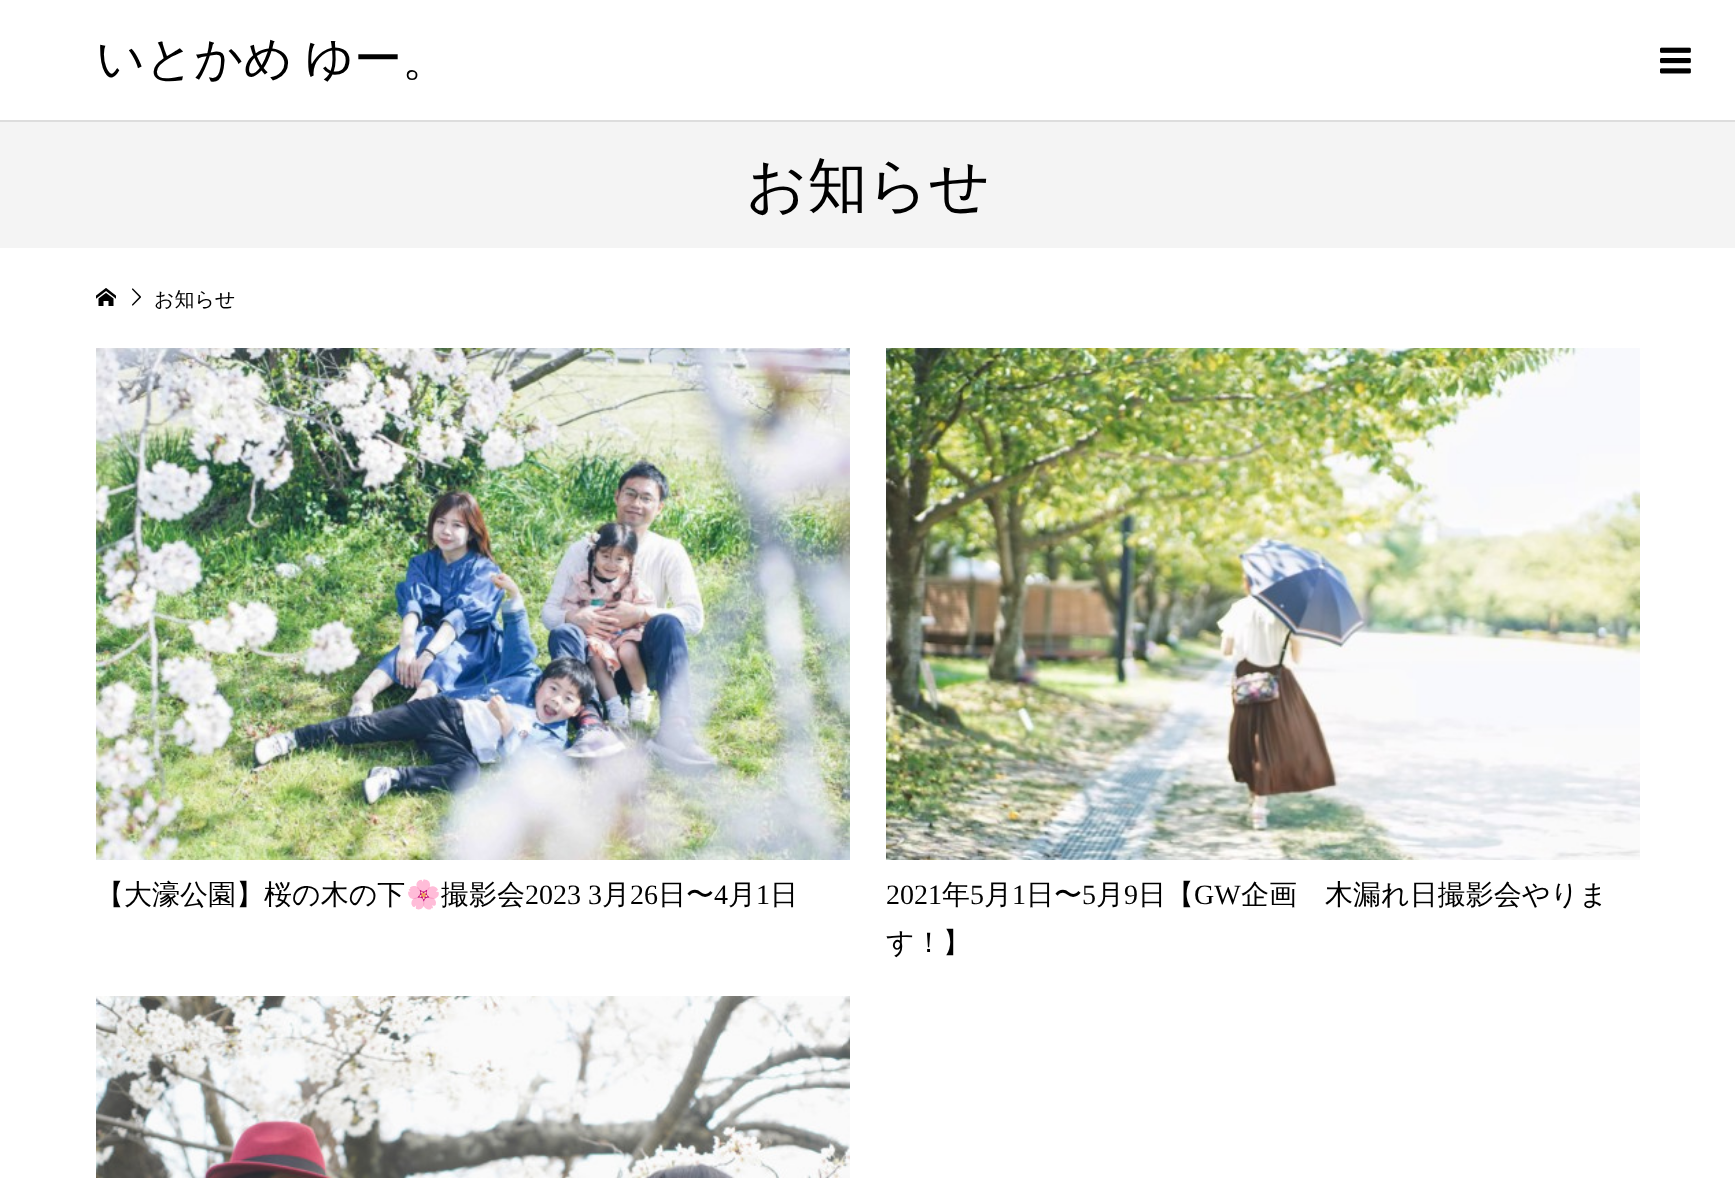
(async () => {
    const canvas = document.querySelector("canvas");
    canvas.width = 1735;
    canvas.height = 1178;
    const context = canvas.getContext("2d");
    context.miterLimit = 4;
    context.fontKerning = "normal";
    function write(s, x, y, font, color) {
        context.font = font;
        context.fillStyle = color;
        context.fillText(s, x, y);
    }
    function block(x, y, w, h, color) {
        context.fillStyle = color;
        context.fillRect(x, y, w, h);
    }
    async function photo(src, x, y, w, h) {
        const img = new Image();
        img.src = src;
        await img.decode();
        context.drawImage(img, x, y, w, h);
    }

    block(0, 0, 1735, 1178, "rgb(255, 255, 255)");
    context.wordSpacing = "-2px";
    write("いとかめ ゆー。", 96, 75, "500 48px WenQuanYi Zen Hei", "rgb(0, 0, 0)");
    await photo("media/1.png", 1660, 47, 31, 27);
    block(0, 122, 1735, 126, "rgb(244, 244, 244)");
    block(0, 120, 1735, 2, "rgb(221, 221, 221)");
    context.wordSpacing = "0px";
    write("お知らせ", 746, 206, "500 60px WenQuanYi Zen Hei", "rgb(0, 0, 0)");
    await photo("media/2.png", 96, 288, 20, 18);
    await photo("media/3.png", 132, 288, 9, 18);
    write("お知らせ", 154, 306, "500 20px WenQuanYi Zen Hei", "rgb(0, 0, 0)");
    await photo("media/4.png", 96, 348, 754, 512);
    write("【大濠公園】桜の木の下", 96, 904, "500 28px WenQuanYi Zen Hei", "rgb(0, 0, 0)");
    write("🌸", 406, 904, "28px Noto Color Emoji", "rgb(0, 0, 0)");
    write("撮影会", 441, 904, "500 28px WenQuanYi Zen Hei", "rgb(0, 0, 0)");
    write("2023 3", 525, 904, "28px Liberation Serif", "rgb(0, 0, 0)");
    write("月", 602, 904, "500 28px WenQuanYi Zen Hei", "rgb(0, 0, 0)");
    write("26", 630, 904, "28px Liberation Serif", "rgb(0, 0, 0)");
    write("日〜", 658, 904, "500 28px WenQuanYi Zen Hei", "rgb(0, 0, 0)");
    write("4", 714, 904, "28px Liberation Serif", "rgb(0, 0, 0)");
    write("月", 728, 904, "500 28px WenQuanYi Zen Hei", "rgb(0, 0, 0)");
    write("1", 756, 904, "28px Liberation Serif", "rgb(0, 0, 0)");
    write("日", 770, 904, "500 28px WenQuanYi Zen Hei", "rgb(0, 0, 0)");
    await photo("media/5.png", 886, 348, 754, 512);
    write("2021", 886, 904, "28px Liberation Serif", "rgb(0, 0, 0)");
    write("年", 942, 904, "500 28px WenQuanYi Zen Hei", "rgb(0, 0, 0)");
    write("5", 970, 904, "28px Liberation Serif", "rgb(0, 0, 0)");
    write("月", 984, 904, "500 28px WenQuanYi Zen Hei", "rgb(0, 0, 0)");
    write("1", 1012, 904, "28px Liberation Serif", "rgb(0, 0, 0)");
    write("日〜", 1026, 904, "500 28px WenQuanYi Zen Hei", "rgb(0, 0, 0)");
    write("5", 1082, 904, "28px Liberation Serif", "rgb(0, 0, 0)");
    write("月", 1096, 904, "500 28px WenQuanYi Zen Hei", "rgb(0, 0, 0)");
    write("9", 1124, 904, "28px Liberation Serif", "rgb(0, 0, 0)");
    write("日【", 1138, 904, "500 28px WenQuanYi Zen Hei", "rgb(0, 0, 0)");
    write("GW", 1194, 904, "28px Liberation Serif", "rgb(0, 0, 0)");
    write("企画　木漏れ日撮影会やりま", 1241, 904, "500 28px WenQuanYi Zen Hei", "rgb(0, 0, 0)");
    write("す！】", 886, 952, "500 28px WenQuanYi Zen Hei", "rgb(0, 0, 0)");
    await photo("media/6.png", 96, 996, 754, 182);
})();
